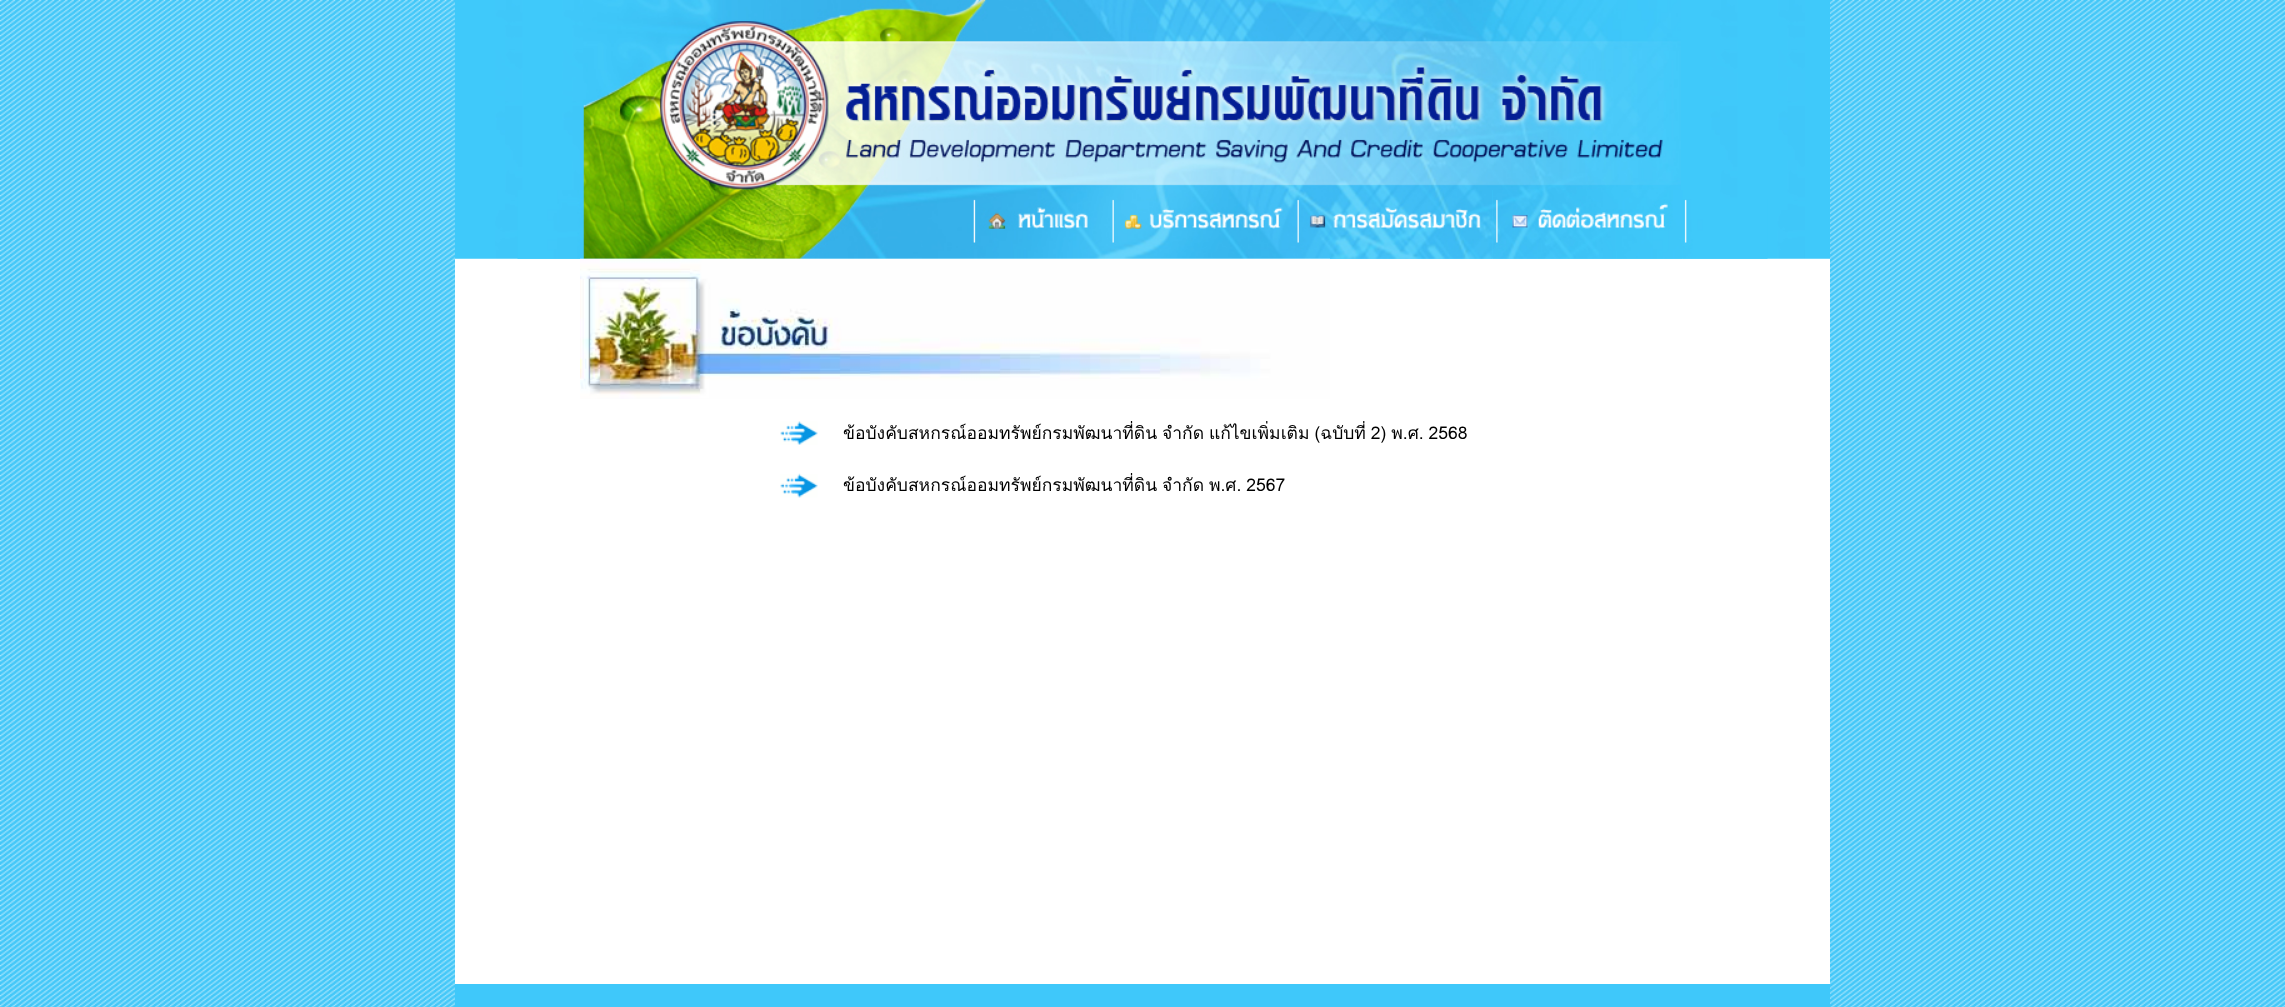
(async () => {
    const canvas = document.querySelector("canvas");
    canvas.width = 2285;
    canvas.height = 1007;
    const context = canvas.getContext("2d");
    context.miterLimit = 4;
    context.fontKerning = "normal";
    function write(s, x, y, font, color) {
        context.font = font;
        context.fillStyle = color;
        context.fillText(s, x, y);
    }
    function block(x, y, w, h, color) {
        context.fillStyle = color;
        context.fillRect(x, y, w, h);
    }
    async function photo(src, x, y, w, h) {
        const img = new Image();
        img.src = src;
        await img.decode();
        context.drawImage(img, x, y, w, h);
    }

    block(0, 0, 2285, 1007, "rgb(255, 255, 255)");
    await photo("media/1.png", 0, 0, 2285, 1007);
    block(455, 258, 1375, 726, "rgb(255, 255, 255)");
    await photo("media/2.png", 455, 0, 1375, 259);
    await photo("media/3.png", 583, 0, 1098, 190);
    await photo("media/4.png", 517, 190, 453, 69);
    await photo("media/5.png", 970, 190, 140, 69);
    await photo("media/6.png", 1110, 190, 185, 69);
    await photo("media/7.png", 1295, 190, 198, 69);
    await photo("media/8.png", 1492, 190, 191, 69);
    await photo("media/9.png", 1682, 199, 86, 60);
    await photo("media/10.png", 580, 258, 750, 141);
    await photo("media/11.png", 780, 421, 38, 24);
    write("ข้อบังคับสหกรณ์ออมทรัพย์กรมพัฒนาที่ดิน", 843, 439, "17.5px Loma", "rgb(0, 0, 0)");
    context.wordSpacing = "-1px";
    write("จำกัด แก้ไขเพิ่มเติม (ฉบับที่ 2) พ.ศ. 2568", 1162, 439, "17.5px Loma", "rgb(0, 0, 0)");
    await photo("media/12.png", 780, 473, 38, 25);
    context.wordSpacing = "0px";
    write("ข้อบังคับสหกรณ์ออมทรัพย์กรมพัฒนาที่ดิน", 843, 491, "17.5px Loma", "rgb(0, 0, 0)");
    context.wordSpacing = "-1px";
    write("จำกัด พ.ศ. 2567", 1162, 491, "17.5px Loma", "rgb(0, 0, 0)");
    block(455, 984, 1375, 23, "rgb(63, 200, 250)");
})();
